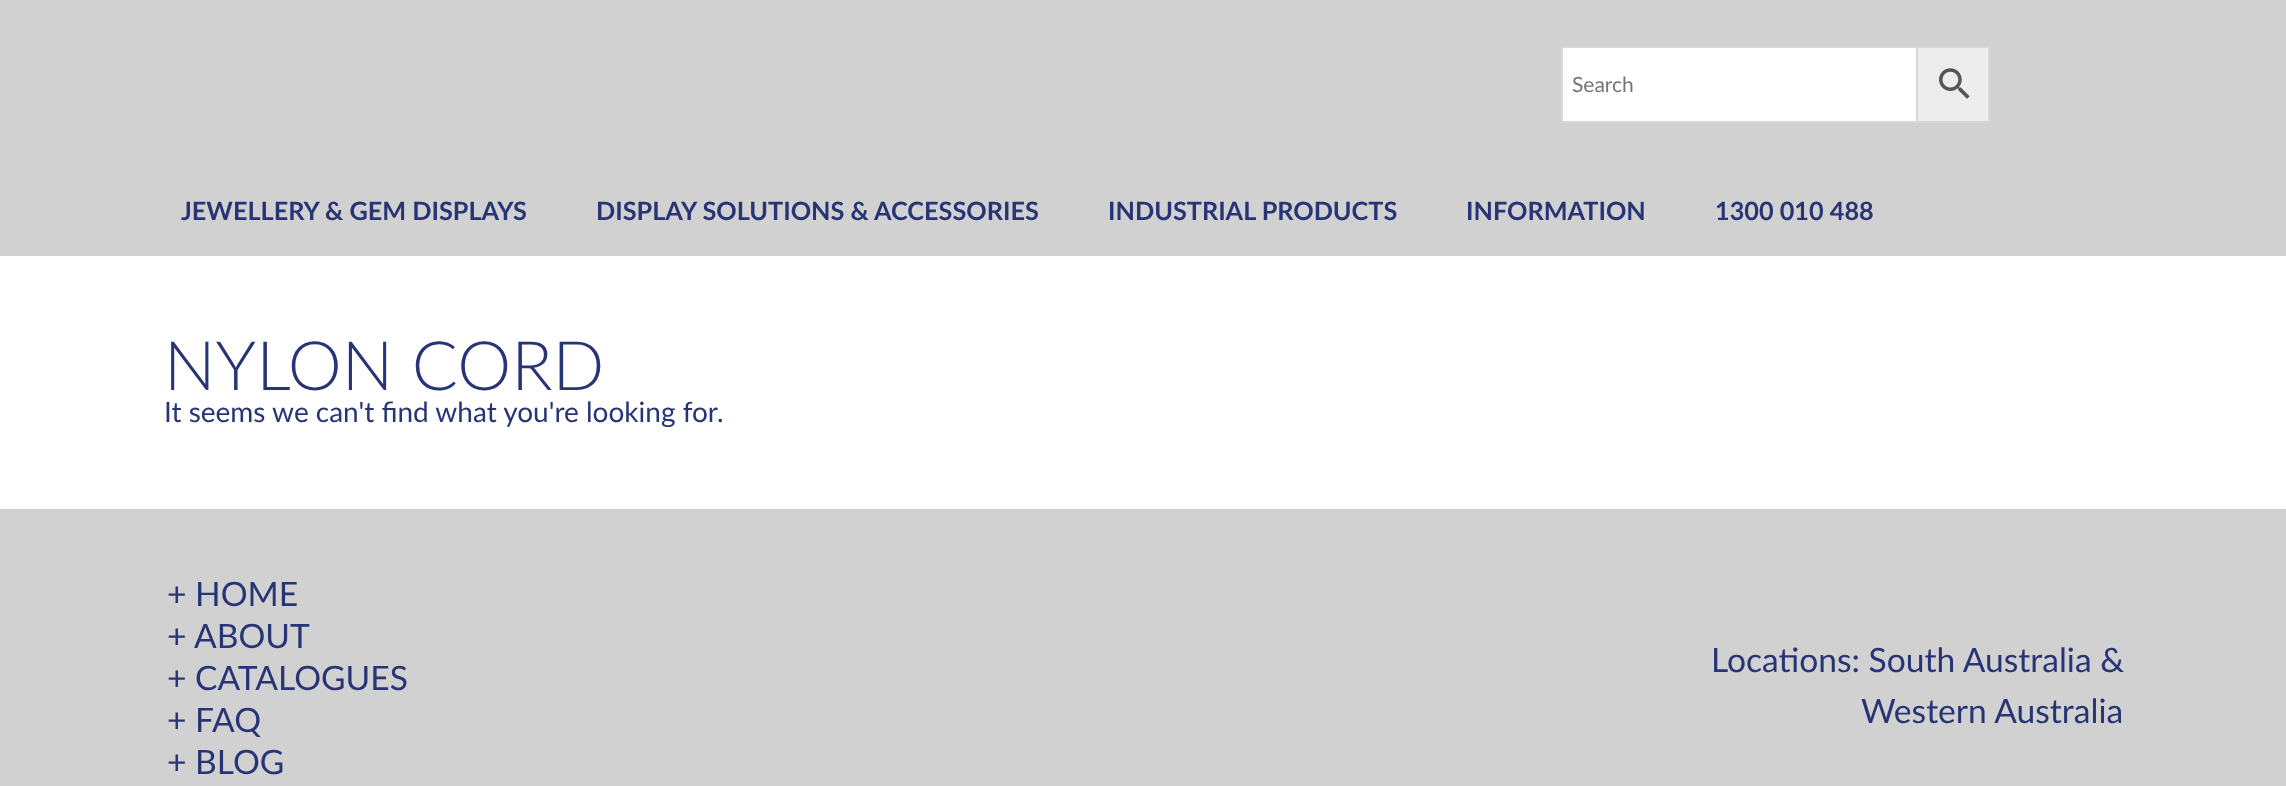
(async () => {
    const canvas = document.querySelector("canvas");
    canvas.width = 2286;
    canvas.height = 786;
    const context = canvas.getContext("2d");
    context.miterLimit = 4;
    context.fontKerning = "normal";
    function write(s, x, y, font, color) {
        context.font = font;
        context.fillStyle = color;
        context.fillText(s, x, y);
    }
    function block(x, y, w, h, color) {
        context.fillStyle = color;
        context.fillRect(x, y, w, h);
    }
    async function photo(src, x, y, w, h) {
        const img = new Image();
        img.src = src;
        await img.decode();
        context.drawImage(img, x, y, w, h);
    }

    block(0, 0, 2286, 786, "rgb(255, 255, 255)");
    block(0, 0, 2286, 256, "rgb(209, 209, 209)");
    context.fillStyle = "rgb(237, 237, 237)";
    context.beginPath();
    context.rect(1917, 47, 72, 75);
    context.fill();
    context.strokeStyle = "rgb(216, 216, 216)";
    context.lineWidth = 2;
    context.stroke();
    context.fillStyle = "rgb(255, 255, 255)";
    context.beginPath();
    context.rect(1562, 47, 355, 75);
    context.fill();
    context.stroke();
    write("Search", 1572, 92, "21px Lato", "rgb(117, 117, 117)");
    await photo("media/1.png", 1939, 68, 31, 31);
    write("JEWELLERY & GEM DISPLAYS", 181, 220, "bold 25.25px Lato", "rgb(39, 52, 117)");
    write("DISPLAY SOLUTIONS & ACCESSORIES", 596, 220, "bold 25.25px Lato", "rgb(39, 52, 117)");
    write("INDUSTRIAL PRODUCTS", 1108, 220, "bold 25.25px Lato", "rgb(39, 52, 117)");
    write("INFORMATION", 1466, 220, "bold 25.25px Lato", "rgb(39, 52, 117)");
    write("1300 010 488", 1715, 220, "bold 25.25px Lato", "rgb(39, 52, 117)");
    write("NYLON CORD", 164, 390, "300 68.25px Lato", "rgb(39, 52, 117)");
    write("It seems we can't find what you're looking for.", 164, 422, "28px Lato", "rgb(39, 52, 117)");
    block(0, 509, 2286, 277, "rgb(209, 209, 209)");
    write("+ HOME", 167, 606, "33.6px Lato", "rgb(39, 52, 117)");
    write("+ ABOUT", 167, 648, "33.6px Lato", "rgb(39, 52, 117)");
    write("+ CATALOGUES", 167, 690, "33.6px Lato", "rgb(39, 52, 117)");
    write("+ FAQ", 167, 732, "33.6px Lato", "rgb(39, 52, 117)");
    write("+ BLOG", 167, 774, "33.6px Lato", "rgb(39, 52, 117)");
    write("Locations: South Australia &", 1711, 672, "33.6px Lato", "rgb(39, 52, 117)");
    write("Western Australia", 1861, 723, "33.6px Lato", "rgb(39, 52, 117)");
})();
